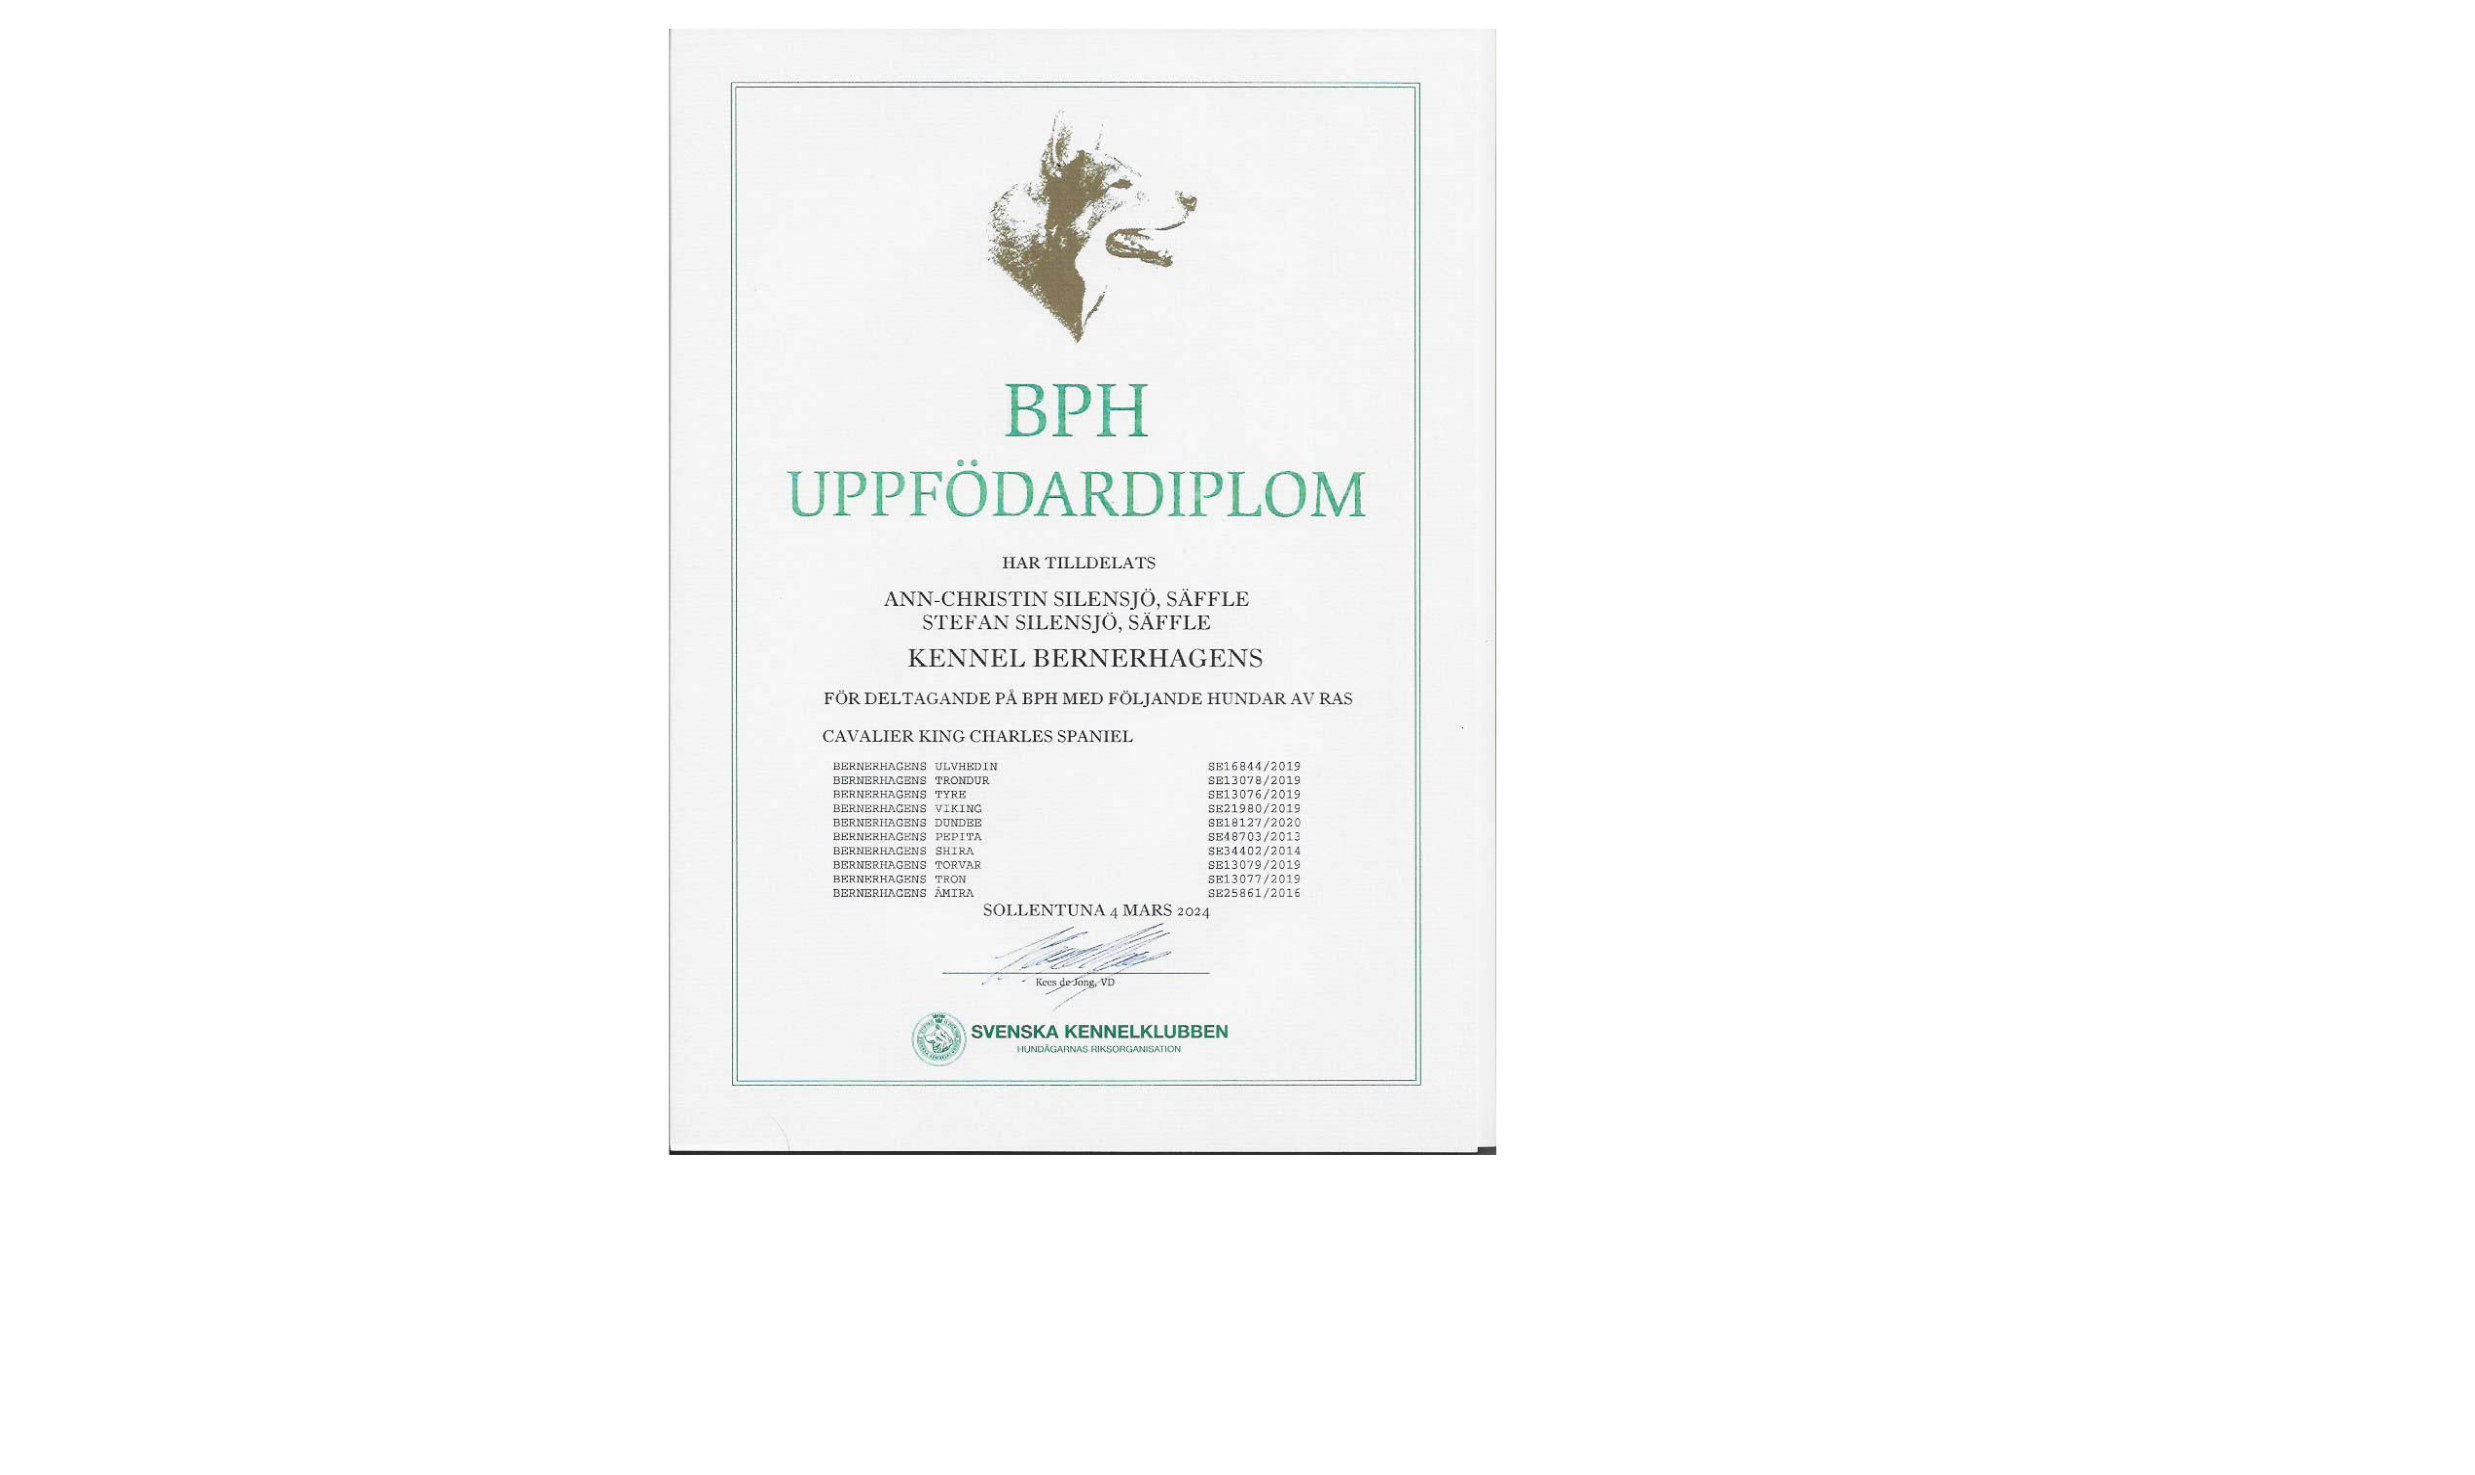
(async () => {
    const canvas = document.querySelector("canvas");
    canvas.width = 2475;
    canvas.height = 1475;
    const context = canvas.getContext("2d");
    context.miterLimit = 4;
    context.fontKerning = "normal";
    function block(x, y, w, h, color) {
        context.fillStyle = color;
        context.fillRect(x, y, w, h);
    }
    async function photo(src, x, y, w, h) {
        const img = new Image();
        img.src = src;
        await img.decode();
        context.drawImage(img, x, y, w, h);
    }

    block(0, 0, 2475, 1475, "rgb(255, 255, 255)");
    await photo("media/1.png", 668, 28, 829, 1127);
})();
